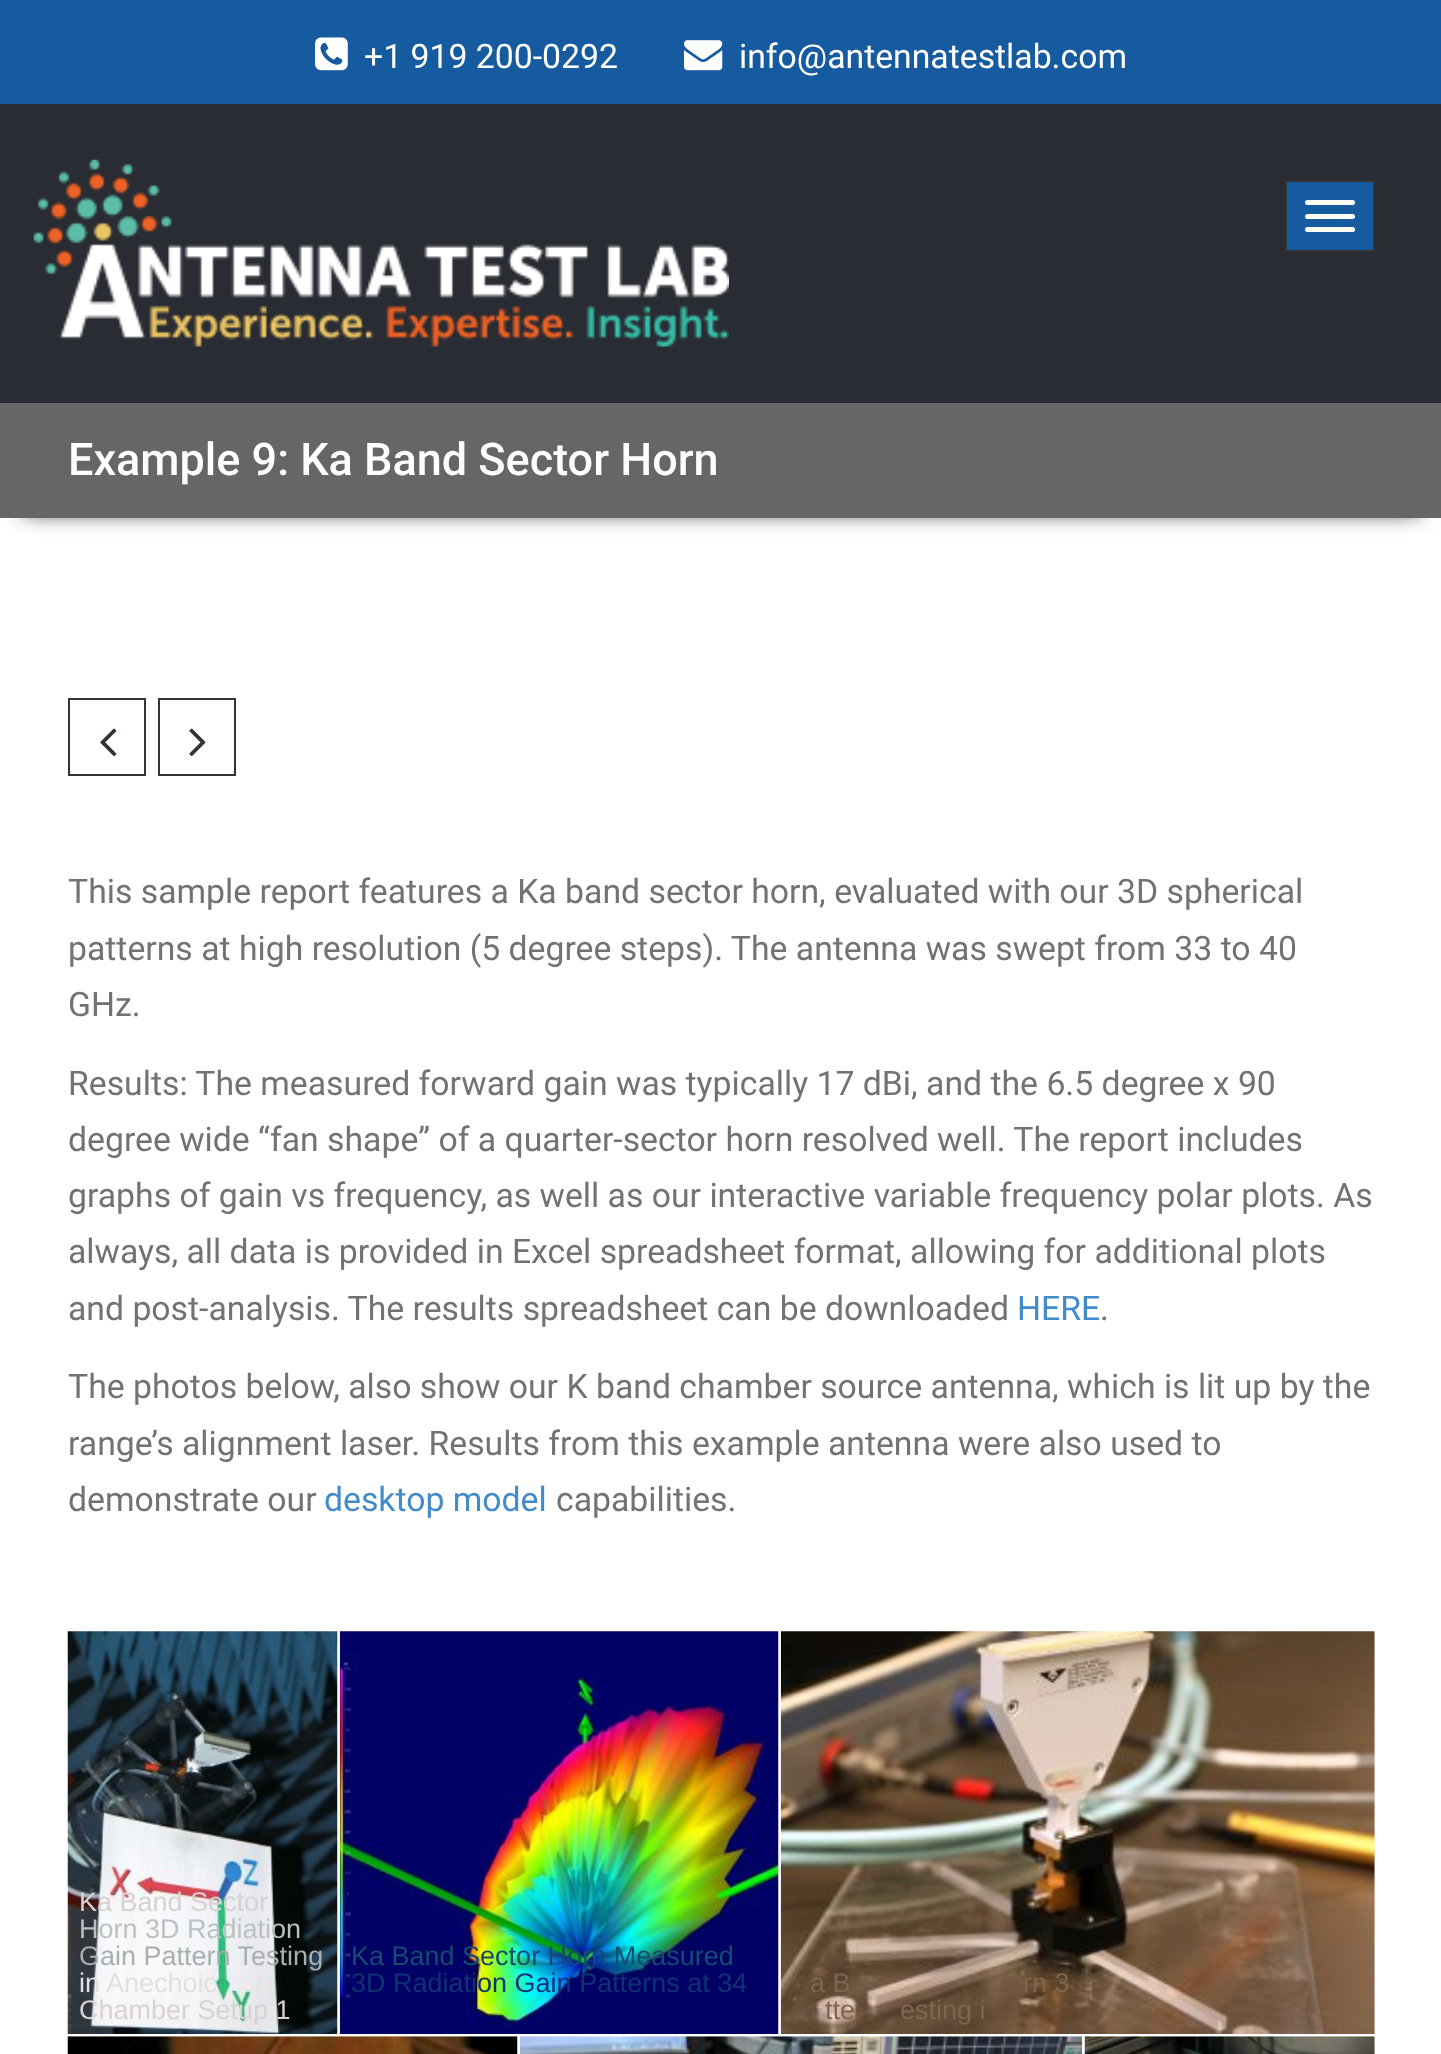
(async () => {
    const canvas = document.querySelector("canvas");
    canvas.width = 1441;
    canvas.height = 2054;
    const context = canvas.getContext("2d");
    context.miterLimit = 4;
    context.fontKerning = "normal";
    function write(s, x, y, font, color) {
        context.font = font;
        context.fillStyle = color;
        context.fillText(s, x, y);
    }
    function block(x, y, w, h, color) {
        context.fillStyle = color;
        context.fillRect(x, y, w, h);
    }
    function card(x, y, w, h, r, color) {
        context.fillStyle = color;
        context.beginPath();
        context.roundRect(x, y, w, h, r);
        context.fill();
    }
    async function photo(src, x, y, w, h) {
        const img = new Image();
        img.src = src;
        await img.decode();
        context.drawImage(img, x, y, w, h);
    }

    block(0, 0, 1441, 2054, "rgb(255, 255, 255)");
    block(0, 0, 1441, 104, "rgb(22, 91, 160)");
    await photo("media/1.png", 315, 37, 33, 34);
    write("+1 919 200-0292", 364, 68, "33.75px Roboto", "rgb(255, 255, 255)");
    await photo("media/2.png", 684, 40, 39, 31);
    write("info@antennatestlab.com", 739, 68, "33.75px Roboto", "rgb(255, 255, 255)");
    block(0, 104, 1441, 299, "rgb(42, 44, 51)");
    await photo("media/3.png", 33, 159, 696, 188);
    context.fillStyle = "rgb(22, 91, 160)";
    context.beginPath();
    context.rect(1286, 181, 88, 70);
    context.fill();
    context.strokeStyle = "rgb(51, 51, 51)";
    context.lineWidth = 2;
    context.stroke();
    card(1305, 200, 50, 5, 2.5, "rgb(255, 255, 255)");
    card(1305, 214, 50, 5, 2.5, "rgb(255, 255, 255)");
    card(1305, 227, 50, 5, 2.5, "rgb(255, 255, 255)");
    context.fillStyle = "rgb(0, 0, 0)";
    context.filter = "blur(11px)";
    context.beginPath();
    context.rect(23, 441, 1397, 70);
    context.fill();
    context.filter = "none";
    block(0, 403, 1441, 115, "rgb(102, 102, 102)");
    write("Example 9: Ka Band Sector Horn", 68, 475, "500 45px Roboto", "rgb(255, 255, 255)");
    context.strokeStyle = "rgb(50, 52, 60)";
    context.strokeRect(69, 699, 76, 76);
    await photo("media/4.png", 100, 728, 17, 29);
    context.strokeRect(159, 699, 76, 76);
    await photo("media/5.png", 189, 728, 17, 29);
    write("This sample report features a Ka band sector horn, evaluated with our 3D spherical", 68, 903, "33.75px Roboto", "rgb(114, 114, 114)");
    write("patterns at high resolution (5 degree steps). The antenna was swept from 33 to 40", 68, 960, "33.75px Roboto", "rgb(114, 114, 114)");
    write("GHz.", 68, 1016, "33.75px Roboto", "rgb(114, 114, 114)");
    write("Results: The measured forward gain was typically 17 dBi, and the 6.5 degree x 90", 68, 1095, "33.75px Roboto", "rgb(114, 114, 114)");
    write("degree wide “fan shape” of a quarter-sector horn resolved well. The report includes", 68, 1151, "33.75px Roboto", "rgb(114, 114, 114)");
    write("graphs of gain vs frequency, as well as our interactive variable frequency polar plots. As", 68, 1207, "33.75px Roboto", "rgb(114, 114, 114)");
    write("always, all data is provided in Excel spreadsheet format, allowing for additional plots", 68, 1263, "33.75px Roboto", "rgb(114, 114, 114)");
    write("and post-analysis. The results spreadsheet can be downloaded", 68, 1320, "33.75px Roboto", "rgb(114, 114, 114)");
    write("HERE", 1017, 1320, "33.75px Roboto", "rgb(66, 139, 202)");
    write(".", 1100, 1320, "33.75px Roboto", "rgb(114, 114, 114)");
    write("The photos below, also show our K band chamber source antenna, which is lit up by the", 68, 1398, "33.75px Roboto", "rgb(114, 114, 114)");
    write("range’s alignment laser. Results from this example antenna were also used to", 68, 1455, "33.75px Roboto", "rgb(114, 114, 114)");
    write("demonstrate our", 68, 1511, "33.75px Roboto", "rgb(114, 114, 114)");
    write("desktop model", 324, 1511, "33.75px Roboto", "rgb(66, 139, 202)");
    write("capabilities.", 556, 1511, "33.75px Roboto", "rgb(114, 114, 114)");
    await photo("media/6.png", 67, 1631, 271, 403);
    write("Ka Band Sector", 79, 1911, "27px Liberation Sans", "rgb(216, 210, 212)");
    write("Horn 3D Radiation", 79, 1938, "27px Liberation Sans", "rgb(186, 193, 194)");
    write("Gain Pattern Testing", 79, 1965, "27px Liberation Sans", "rgb(168, 175, 177)");
    write("in Anechoic", 79, 1992, "27px Liberation Sans", "rgb(225, 224, 228)");
    write("Chamber Setup 1", 79, 2019, "27px Liberation Sans", "rgb(216, 210, 212)");
    await photo("media/7.png", 339, 1631, 440, 403);
    write("Ka Band Sector Horn Measured", 351, 1965, "27px Liberation Sans", "rgb(22, 75, 113)");
    write("3D Radiation Gain Patterns at 34", 351, 1992, "27px Liberation Sans", "rgb(15, 50, 115)");
    await photo("media/8.png", 780, 1631, 595, 403);
    write("a B", 810, 1992, "27px Liberation Sans", "rgb(129, 102, 79)");
    write("rn 3", 1023, 1992, "27px Liberation Sans", "rgb(129, 102, 79)");
    write("tte", 825, 2019, "27px Liberation Sans", "rgb(129, 102, 79)");
    write("esting i", 900, 2019, "27px Liberation Sans", "rgb(129, 102, 79)");
    await photo("media/9.png", 67, 2036, 451, 18);
    await photo("media/10.png", 519, 2036, 564, 18);
    await photo("media/11.png", 1084, 2036, 291, 18);
})();
